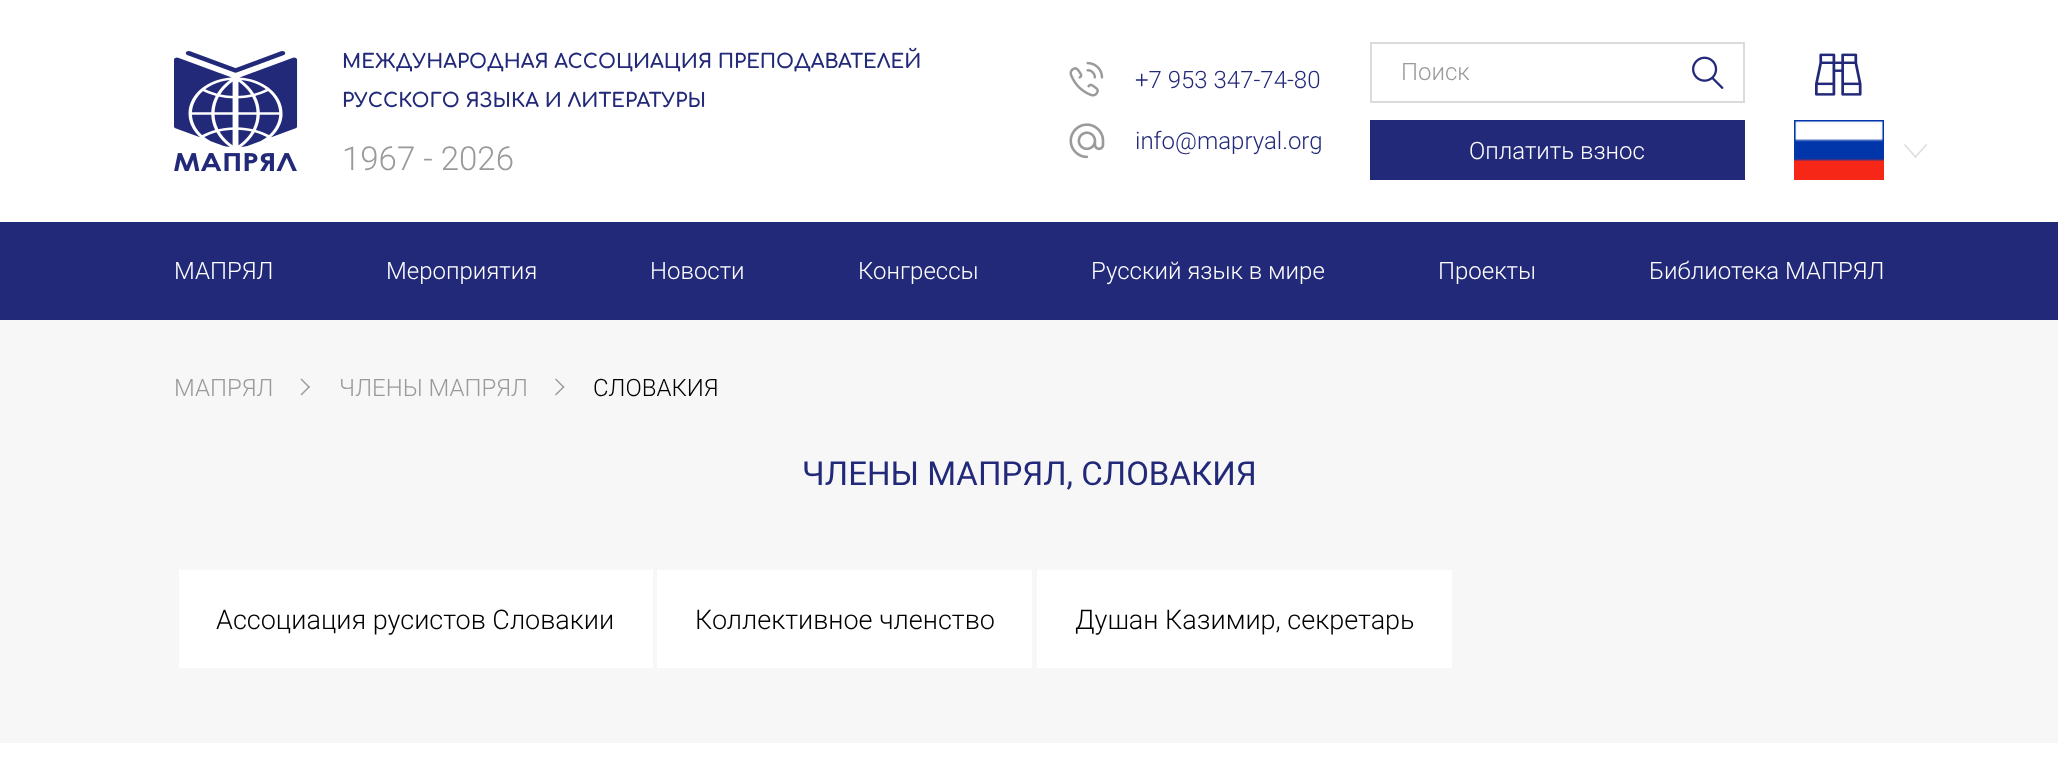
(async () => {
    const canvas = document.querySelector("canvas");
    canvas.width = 2058;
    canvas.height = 771;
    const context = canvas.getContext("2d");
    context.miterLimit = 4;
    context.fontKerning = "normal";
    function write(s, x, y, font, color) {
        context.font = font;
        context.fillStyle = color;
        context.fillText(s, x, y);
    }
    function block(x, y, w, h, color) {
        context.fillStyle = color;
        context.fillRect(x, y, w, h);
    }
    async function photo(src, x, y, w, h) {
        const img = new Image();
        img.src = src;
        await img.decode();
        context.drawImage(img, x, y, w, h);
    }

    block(0, 0, 2058, 771, "rgb(255, 255, 255)");
    await photo("media/1.png", 174, 51, 124, 120);
    write("МЕЖДУНАРОДНАЯ АССОЦИАЦИЯ ПРЕПОДАВАТЕЛЕЙ", 342, 68, "bold 19.5px Comfortaa", "rgb(34, 41, 121)");
    write("РУССКОГО ЯЗЫКА И ЛИТЕРАТУРЫ", 342, 107, "bold 19.5px Comfortaa", "rgb(34, 41, 121)");
    write("1967 - 2026", 342, 170, "300 33px Roboto", "rgb(154, 154, 154)");
    await photo("media/2.png", 1069, 61, 35, 36);
    write("+7 953 347-74-80", 1135, 88, "300 24px Roboto", "rgb(34, 41, 121)");
    await photo("media/3.png", 1069, 123, 36, 36);
    write("info@mapryal.org", 1135, 149, "300 24px Roboto", "rgb(34, 41, 121)");
    block(1370, 42, 375, 2, "rgb(219, 219, 219)");
    block(1370, 101, 303, 2, "rgb(219, 219, 219)");
    block(1370, 42, 2, 60, "rgb(219, 219, 219)");
    write("Поиск", 1401, 80, "300 24px Roboto", "rgb(154, 154, 154)");
    block(1743, 42, 2, 60, "rgb(219, 219, 219)");
    block(1673, 101, 72, 2, "rgb(219, 219, 219)");
    await photo("media/4.png", 1692, 56, 32, 33);
    block(1370, 120, 375, 60, "rgb(34, 41, 121)");
    write("Оплатить взнос", 1469, 159, "300 24px Roboto", "rgb(255, 255, 255)");
    await photo("media/5.png", 1815, 53, 47, 43);
    await photo("media/6.png", 1794, 120, 90, 60);
    context.fillStyle = "rgb(219, 219, 219)";
    context.beginPath();
    context.moveTo(1926, 144);
    context.lineTo(1927, 145);
    context.lineTo(1915.5, 158);
    context.lineTo(1914.5, 157);
    context.closePath();
    context.fill();
    context.beginPath();
    context.moveTo(1905, 144);
    context.lineTo(1916.5, 157);
    context.lineTo(1915.5, 158);
    context.lineTo(1904, 145);
    context.closePath();
    context.fill();
    block(0, 222, 2058, 98, "rgb(34, 41, 121)");
    write("МАПРЯЛ", 174, 279, "300 24px Roboto", "rgb(255, 255, 255)");
    write("Мероприятия", 386, 279, "300 24px Roboto", "rgb(255, 255, 255)");
    write("Новости", 650, 279, "300 24px Roboto", "rgb(255, 255, 255)");
    write("Конгрессы", 858, 279, "300 24px Roboto", "rgb(255, 255, 255)");
    write("Русский язык в мире", 1091, 279, "300 24px Roboto", "rgb(255, 255, 255)");
    write("Проекты", 1438, 279, "300 24px Roboto", "rgb(255, 255, 255)");
    write("Библиотека МАПРЯЛ", 1649, 279, "300 24px Roboto", "rgb(255, 255, 255)");
    block(0, 320, 2058, 135, "rgb(247, 247, 247)");
    write("МАПРЯЛ", 174, 396, "300 24px Roboto", "rgb(154, 154, 154)");
    context.beginPath();
    context.moveTo(300.5, 379.5);
    context.lineTo(301.5, 378.5);
    context.lineTo(310, 387);
    context.lineTo(309, 388);
    context.closePath();
    context.fill();
    context.beginPath();
    context.moveTo(300.5, 394.5);
    context.lineTo(309, 386);
    context.lineTo(310, 387);
    context.lineTo(301.5, 395.5);
    context.closePath();
    context.fill();
    write("ЧЛЕНЫ МАПРЯЛ", 339, 396, "300 24px Roboto", "rgb(154, 154, 154)");
    context.beginPath();
    context.moveTo(555, 379.5);
    context.lineTo(556, 378.5);
    context.lineTo(564.5, 387);
    context.lineTo(563.5, 388);
    context.closePath();
    context.fill();
    context.beginPath();
    context.moveTo(555, 394.5);
    context.lineTo(563.5, 386);
    context.lineTo(564.5, 387);
    context.lineTo(556, 395.5);
    context.closePath();
    context.fill();
    write("СЛОВАКИЯ", 593, 396, "300 24px Roboto", "rgb(0, 0, 0)");
    block(0, 455, 2058, 288, "rgb(247, 247, 247)");
    write("ЧЛЕНЫ МАПРЯЛ, СЛОВАКИЯ", 802, 485, "33px Roboto", "rgb(34, 41, 121)");
    block(179, 570, 474, 98, "rgb(255, 255, 255)");
    write("Ассоциация русистов Словакии", 216, 629, "300 27px Roboto", "rgb(0, 0, 0)");
    block(657, 570, 375, 98, "rgb(255, 255, 255)");
    write("Коллективное членство", 695, 629, "300 27px Roboto", "rgb(0, 0, 0)");
    block(1037, 570, 415, 98, "rgb(255, 255, 255)");
    write("Душан Казимир, секретарь", 1075, 629, "300 27px Roboto", "rgb(0, 0, 0)");
})();
